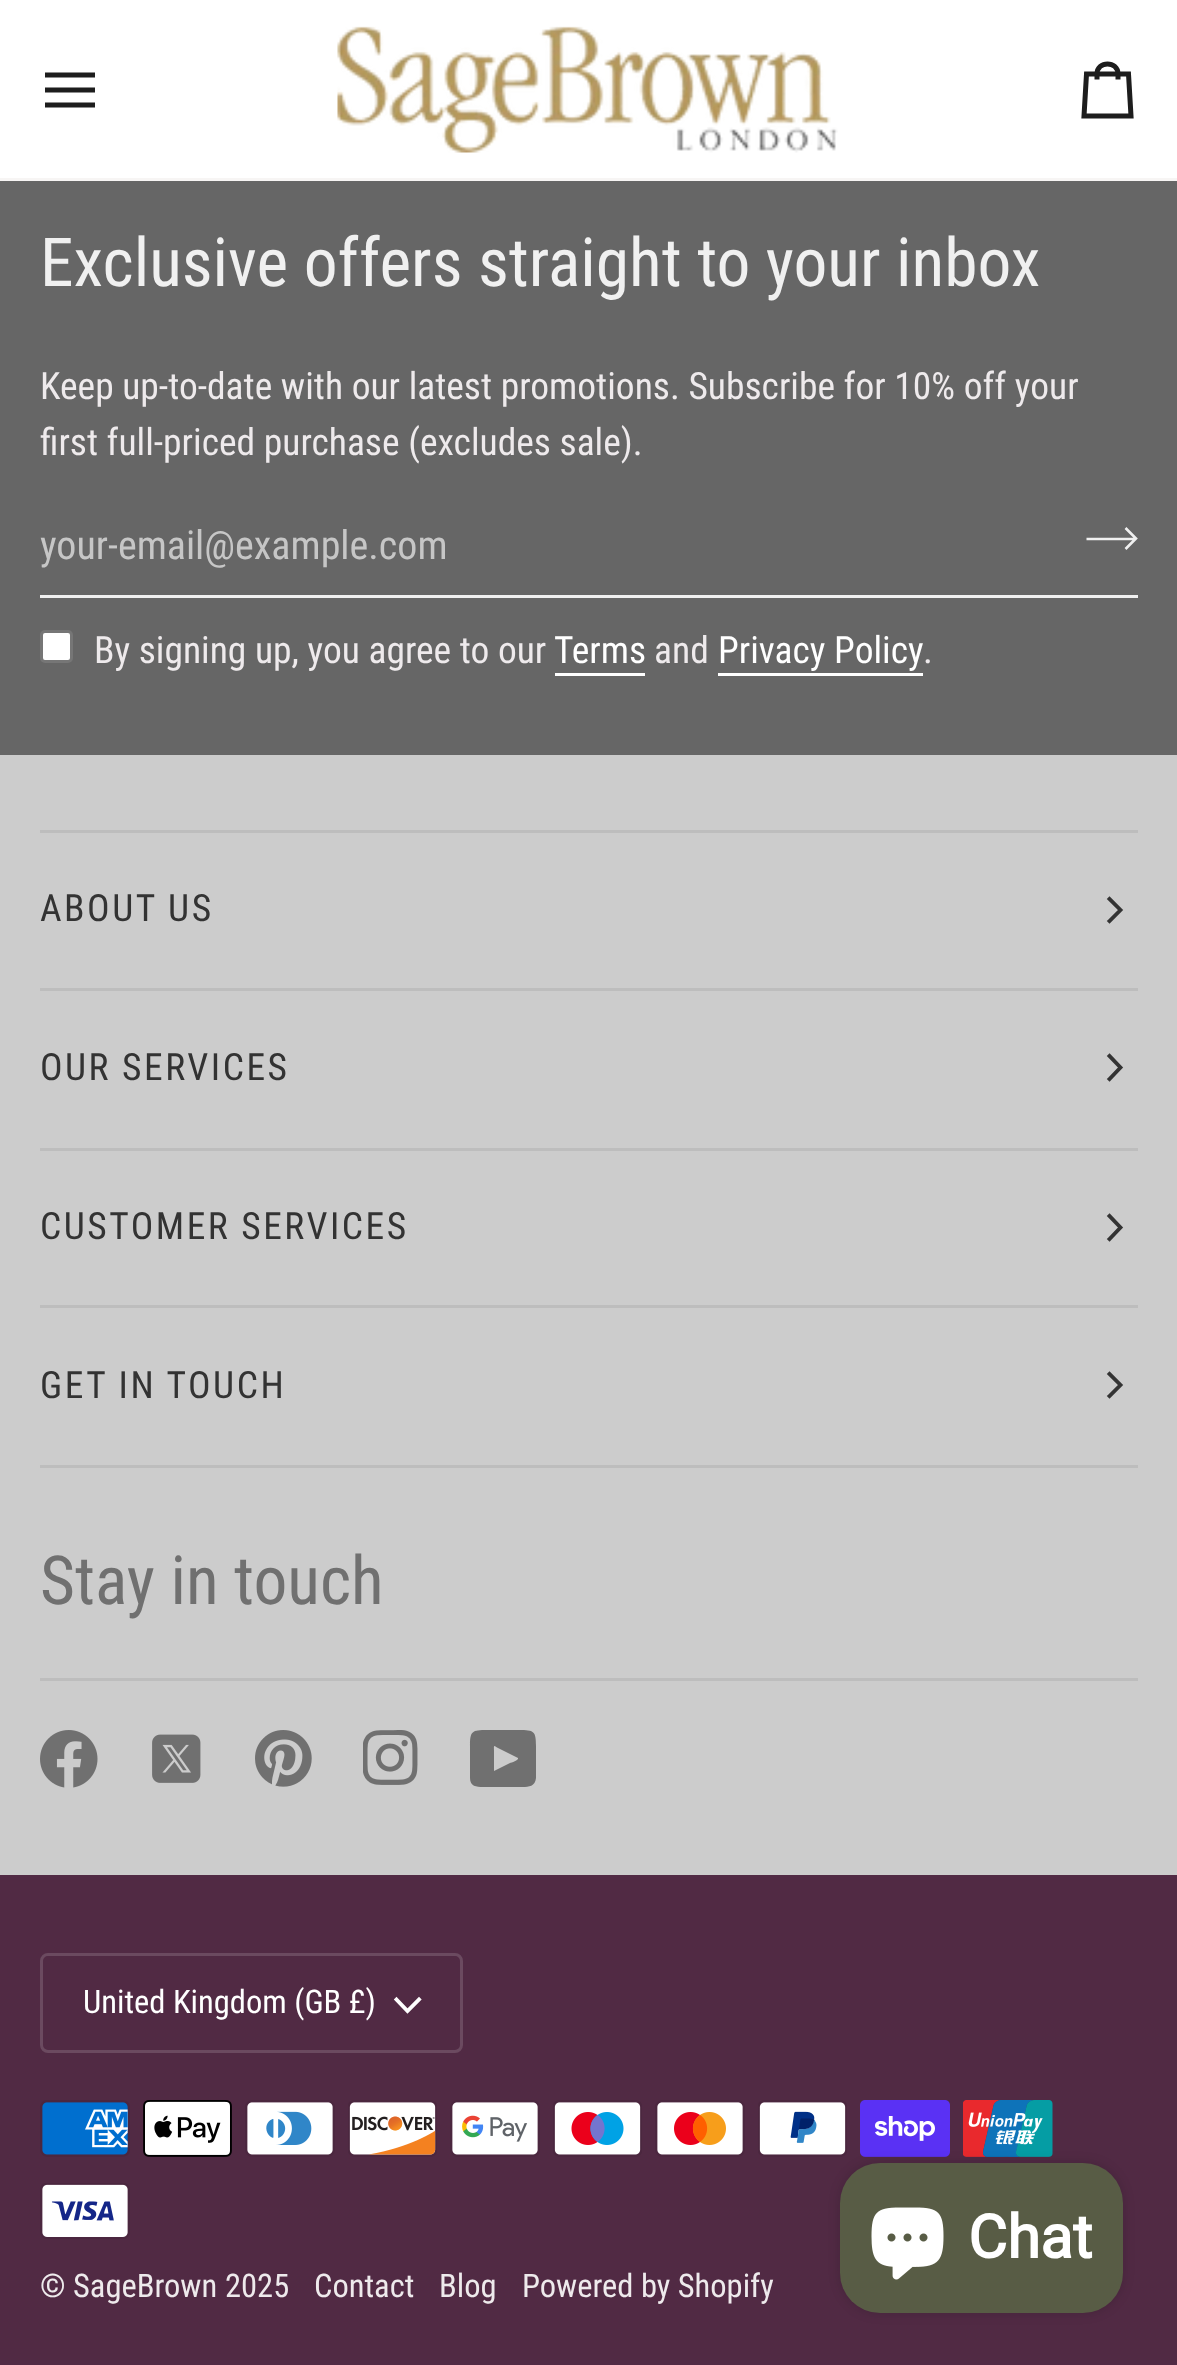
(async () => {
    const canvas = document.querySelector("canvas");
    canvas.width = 1177;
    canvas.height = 2365;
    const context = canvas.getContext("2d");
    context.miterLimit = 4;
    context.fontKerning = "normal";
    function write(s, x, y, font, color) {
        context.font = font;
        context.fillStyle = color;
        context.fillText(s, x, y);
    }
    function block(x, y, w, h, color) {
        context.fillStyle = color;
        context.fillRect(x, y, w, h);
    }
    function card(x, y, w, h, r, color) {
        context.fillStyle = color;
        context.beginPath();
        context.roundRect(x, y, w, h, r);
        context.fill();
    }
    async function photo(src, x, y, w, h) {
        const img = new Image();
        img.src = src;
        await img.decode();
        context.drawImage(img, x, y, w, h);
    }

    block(0, 0, 1177, 2365, "rgb(81, 42, 68)");
    block(0, 178, 1177, 3, "rgb(247, 245, 244)");
    block(0, 0, 1177, 178, "rgb(255, 255, 255)");
    context.beginPath();
    context.moveTo(92.5, 75);
    context.lineTo(47.5, 75);
    context.moveTo(92.5, 90);
    context.lineTo(47.5, 90);
    context.moveTo(92.5, 105);
    context.lineTo(47.5, 105);
    context.strokeStyle = "rgb(29, 29, 29)";
    context.lineWidth = 5;
    context.lineCap = "square";
    context.stroke();
    await photo("media/1.png", 337, 26, 501, 127);
    context.beginPath();
    context.moveTo(1118, 79.5);
    context.lineTo(1118, 74);
    context.lineTo(1128.5, 74);
    context.lineTo(1131, 116);
    context.lineTo(1084, 116);
    context.lineTo(1086.5, 74);
    context.lineTo(1097, 74);
    context.bezierCurveTo(1097, 60.5, 1118, 60.5, 1118, 74);
    context.lineTo(1097, 74);
    context.lineTo(1097, 79.5);
    context.lineCap = "butt";
    context.stroke();
    block(0, 755, 1177, 1120, "rgb(204, 204, 204)");
    block(0, 181, 1177, 574, "rgb(102, 102, 102)");
    write("Exclusive offers straight to your inbox", 40, 286, "67.5px Roboto Condensed", "rgb(240, 240, 240)");
    write("Keep up-to-date with our latest promotions. Subscribe for 10% off your", 40, 399, "37.5px Roboto Condensed", "rgb(238, 234, 236)");
    write("first full-priced purchase (excludes sale).", 40, 455, "37.5px Roboto Condensed", "rgb(238, 234, 236)");
    block(40, 595, 1098, 3, "rgb(240, 240, 240)");
    write("your-email@example.com", 40, 559, "40px Roboto Condensed", "rgb(198, 198, 198)");
    context.beginPath();
    context.moveTo(1125.5, 528);
    context.lineTo(1136, 538.5);
    context.lineTo(1125.5, 549);
    context.moveTo(1086.5, 539);
    context.lineTo(1136, 539);
    context.strokeStyle = "rgb(240, 240, 240)";
    context.lineWidth = 2.6;
    context.stroke();
    context.fillStyle = "rgb(255, 255, 255)";
    context.beginPath();
    context.roundRect(41.5, 631.5, 30, 30, 3.5);
    context.fill();
    context.strokeStyle = "rgb(118, 118, 118)";
    context.lineWidth = 3;
    context.stroke();
    write("By signing up, you agree to our", 94, 663, "37.5px Roboto Condensed", "rgb(238, 234, 236)");
    write("Terms", 554, 663, "37.5px Roboto Condensed", "rgb(255, 255, 255)");
    block(555, 673, 90, 3, "rgb(255, 255, 255)");
    write("and", 654, 663, "37.5px Roboto Condensed", "rgb(238, 234, 236)");
    write("Privacy Policy", 718, 663, "37.5px Roboto Condensed", "rgb(255, 255, 255)");
    block(718, 673, 205, 3, "rgb(255, 255, 255)");
    write(".", 923, 663, "37.5px Roboto Condensed", "rgb(238, 234, 236)");
    block(40, 830, 1098, 3, "rgb(189, 189, 189)");
    block(40, 988, 1098, 3, "rgb(189, 189, 189)");
    context.letterSpacing = "2.5px";
    write("ABOUT US", 40, 921, "37.5px Roboto Condensed", "rgb(51, 51, 51)");
    context.beginPath();
    context.moveTo(1109.5, 921);
    context.lineTo(1120.5, 910);
    context.lineTo(1109.5, 899);
    context.strokeStyle = "rgb(51, 51, 51)";
    context.lineWidth = 3.8;
    context.lineCap = "square";
    context.stroke();
    block(40, 1148, 1098, 3, "rgb(189, 189, 189)");
    write("OUR SERVICES", 40, 1080, "37.5px Roboto Condensed", "rgb(51, 51, 51)");
    context.beginPath();
    context.moveTo(1109.5, 1079);
    context.lineTo(1120.5, 1067.5);
    context.lineTo(1109.5, 1056);
    context.stroke();
    block(40, 1305, 1098, 3, "rgb(189, 189, 189)");
    write("CUSTOMER SERVICES", 40, 1239, "37.5px Roboto Condensed", "rgb(51, 51, 51)");
    context.beginPath();
    context.moveTo(1109.5, 1239);
    context.lineTo(1120.5, 1227.5);
    context.lineTo(1109.5, 1216);
    context.stroke();
    block(40, 1465, 1098, 3, "rgb(189, 189, 189)");
    write("GET IN TOUCH", 40, 1398, "37.5px Roboto Condensed", "rgb(51, 51, 51)");
    context.beginPath();
    context.moveTo(1109.5, 1396);
    context.lineTo(1120.5, 1385);
    context.lineTo(1109.5, 1374);
    context.stroke();
    context.letterSpacing = "0px";
    write("Stay in touch", 40, 1604, "67.5px Roboto Condensed", "rgb(112, 112, 112)");
    block(40, 1678, 1098, 3, "rgb(189, 189, 189)");
    await photo("media/2.png", 40, 1730, 58, 58);
    await photo("media/3.png", 152, 1734, 49, 49);
    await photo("media/4.png", 255, 1730, 57, 57);
    await photo("media/5.png", 363, 1730, 55, 55);
    context.fillStyle = "rgb(112, 112, 112)";
    context.beginPath();
    context.moveTo(470, 1778);
    context.bezierCurveTo(470, 1788, 479, 1787, 487, 1787);
    context.lineTo(519, 1787);
    context.bezierCurveTo(526, 1787, 535, 1788, 536, 1778);
    context.lineTo(536, 1746);
    context.bezierCurveTo(536, 1731, 534, 1730, 519, 1730);
    context.lineTo(487, 1730);
    context.bezierCurveTo(472, 1730, 470, 1731, 470, 1746);
    context.closePath();
    context.moveTo(494, 1771);
    context.lineTo(494, 1751);
    context.bezierCurveTo(494, 1745, 493, 1745, 498, 1748);
    context.lineTo(518, 1758);
    context.bezierCurveTo(519, 1760, 511, 1763, 510, 1763);
    context.closePath();
    context.fill();
    context.beginPath();
    context.roundRect(41.5, 1954.5, 420, 97, 6.5);
    context.strokeStyle = "rgb(107, 74, 96)";
    context.lineWidth = 3;
    context.stroke();
    write("United Kingdom (GB £)", 83, 2013, "32.5px Roboto Condensed", "rgb(255, 255, 255)");
    context.beginPath();
    context.moveTo(396.5, 1999.5);
    context.lineTo(407.5, 2011);
    context.lineTo(419, 1999.5);
    context.strokeStyle = "rgb(255, 255, 255)";
    context.lineWidth = 3.8;
    context.stroke();
    await photo("media/6.png", 40, 2100, 90, 57);
    await photo("media/7.png", 143, 2100, 89, 57);
    await photo("media/8.png", 245, 2100, 90, 57);
    await photo("media/9.png", 348, 2100, 89, 57);
    await photo("media/10.png", 450, 2100, 90, 57);
    await photo("media/11.png", 553, 2100, 89, 57);
    await photo("media/12.png", 655, 2100, 90, 57);
    await photo("media/13.png", 758, 2100, 89, 57);
    await photo("media/14.png", 860, 2100, 90, 57);
    await photo("media/15.png", 963, 2100, 90, 57);
    await photo("media/16.png", 40, 2183, 90, 56);
    write("© SageBrown", 40, 2297, "32.5px Roboto Condensed", "rgb(238, 234, 236)");
    write("2025", 225, 2297, "32.5px Roboto Condensed", "rgb(238, 234, 236)");
    write("Contact", 314, 2297, "32.5px Roboto Condensed", "rgb(238, 234, 236)");
    write("Blog", 439, 2297, "32.5px Roboto Condensed", "rgb(238, 234, 236)");
    write("Powered by Shopify", 522, 2297, "32.5px Roboto Condensed", "rgb(238, 234, 236)");
    context.fillStyle = "rgba(0, 0, 0, 0.15)";
    context.filter = "blur(6px)";
    context.beginPath();
    context.roundRect(840, 2163, 283, 150, 40);
    context.fill();
    context.filter = "none";
    card(840, 2163, 283, 150, 40, "rgb(88, 92, 69)");
    await photo("media/17.png", 871, 2207, 73, 73);
    write("Chat", 968, 2258, "bold 60px Roboto", "rgb(255, 255, 255)");
})();
